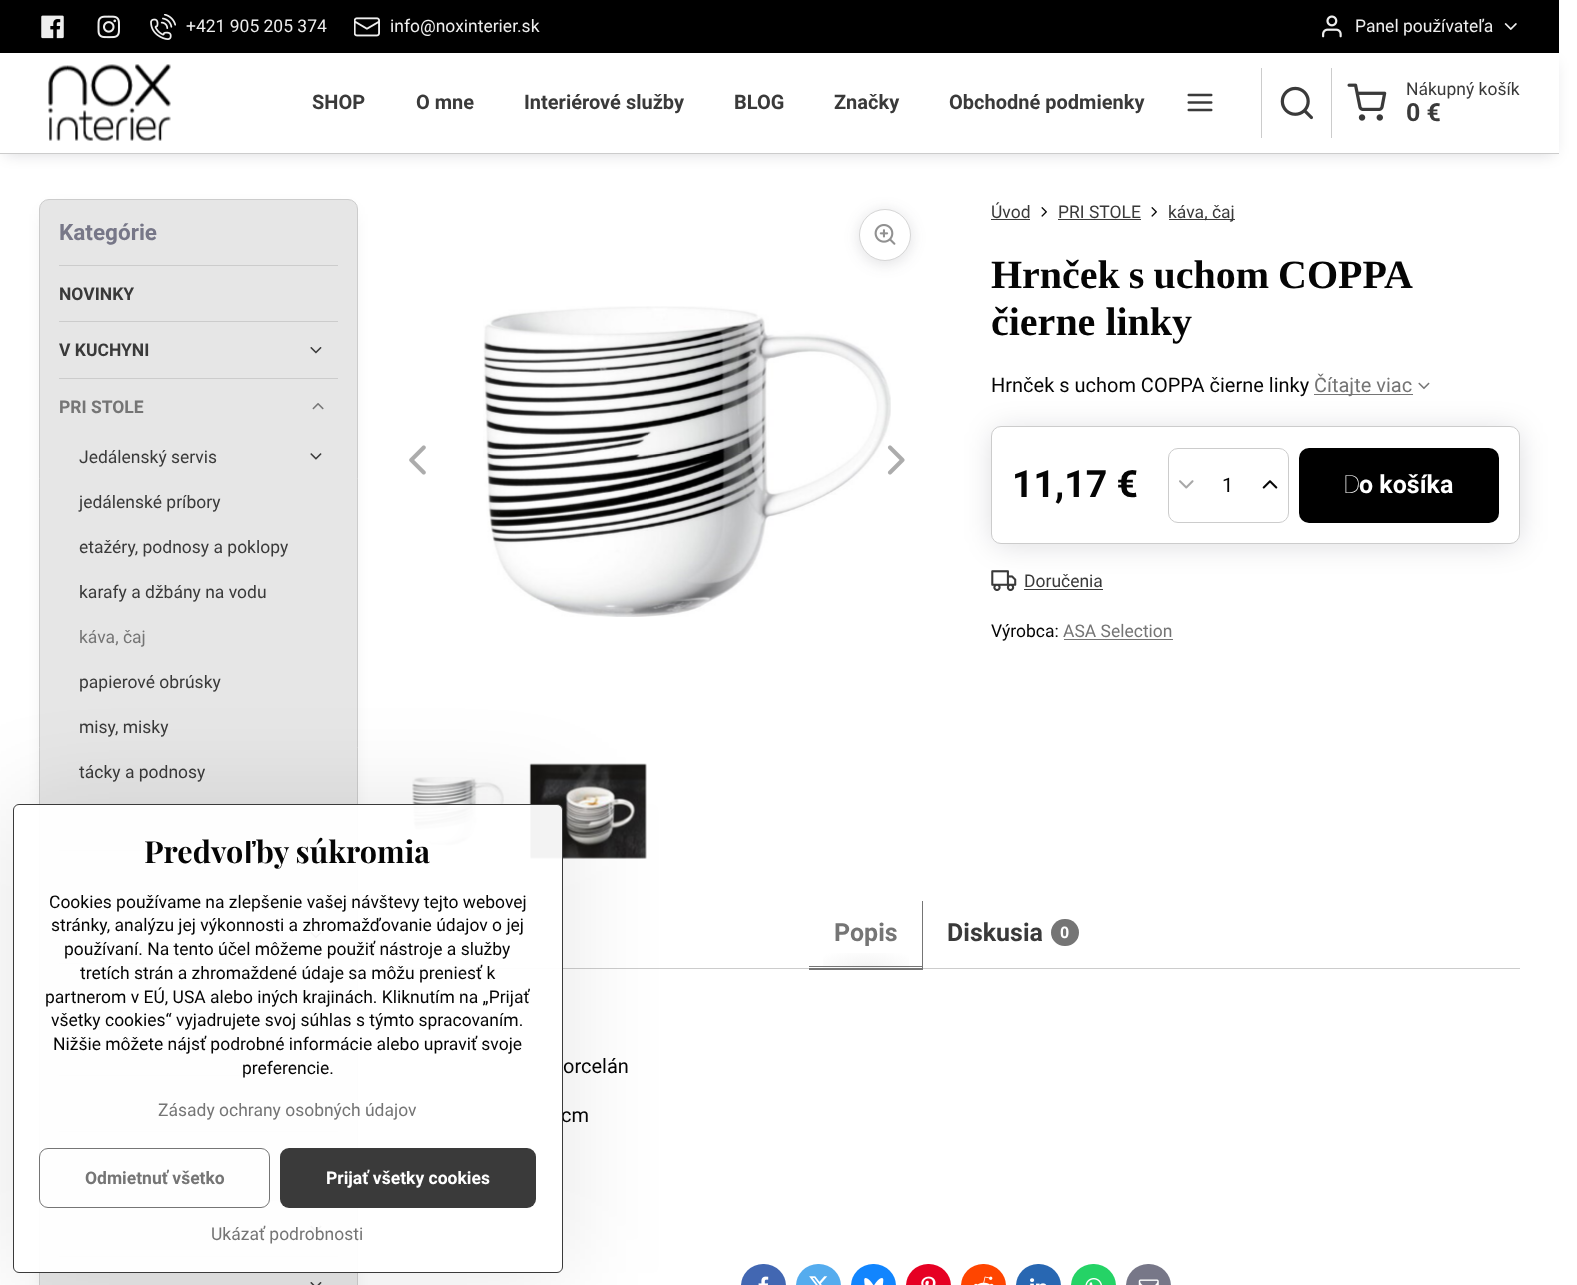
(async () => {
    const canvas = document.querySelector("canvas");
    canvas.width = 1577;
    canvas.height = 1285;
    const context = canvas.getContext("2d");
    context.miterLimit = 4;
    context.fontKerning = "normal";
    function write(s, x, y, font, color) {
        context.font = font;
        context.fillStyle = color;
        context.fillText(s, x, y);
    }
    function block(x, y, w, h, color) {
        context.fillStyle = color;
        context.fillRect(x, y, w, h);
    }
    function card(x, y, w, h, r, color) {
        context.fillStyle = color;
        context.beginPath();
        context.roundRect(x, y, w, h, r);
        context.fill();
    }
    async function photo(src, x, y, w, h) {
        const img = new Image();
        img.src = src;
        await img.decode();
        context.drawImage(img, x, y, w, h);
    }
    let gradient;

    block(0, 0, 1577, 1285, "rgb(255, 255, 255)");
    block(0, 0, 1559, 53, "rgb(0, 0, 0)");
    await photo("media/1.png", 41, 15, 23, 24);
    await photo("media/2.png", 97, 15, 23, 24);
    await photo("media/3.png", 150, 14, 26, 26);
    write("+421 905 205 374", 186, 32, "17.5px Roboto", "rgb(238, 238, 238)");
    await photo("media/4.png", 354, 17, 26, 20);
    write("info@noxinterier.sk", 390, 32, "17.5px Roboto", "rgb(238, 238, 238)");
    await photo("media/5.png", 1322, 15, 20, 23);
    write("Panel používateľa", 1355, 32, "17.5px Roboto", "rgb(238, 238, 238)");
    await photo("media/6.png", 1504, 23, 13, 7);
    context.fillStyle = "rgba(0, 0, 20, 0.15)";
    context.filter = "blur(7.5px)";
    context.beginPath();
    context.rect(5, 63, 1549, 91);
    context.fill();
    context.filter = "none";
    block(0, 53, 1559, 100, "rgb(255, 255, 255)");
    block(0, 153, 1559, 1, "rgb(204, 204, 204)");
    write("SHOP", 312, 109, "bold 20px Roboto", "rgb(58, 58, 58)");
    write("O mne", 416, 109, "bold 20px Roboto", "rgb(58, 58, 58)");
    write("Interiérové služby", 524, 109, "bold 20px Roboto", "rgb(58, 58, 58)");
    write("BLOG", 734, 109, "bold 20px Roboto", "rgb(58, 58, 58)");
    write("Značky", 834, 109, "bold 20px Roboto", "rgb(58, 58, 58)");
    write("Obchodné podmienky", 949, 109, "bold 20px Roboto", "rgb(58, 58, 58)");
    await photo("media/7.png", 1187, 93, 26, 19);
    await photo("media/8.png", 48, 64, 123, 77);
    block(1261, 68, 1, 70, "rgb(204, 204, 204)");
    await photo("media/9.png", 1280, 86, 33, 34);
    block(1331, 68, 1, 70, "rgb(204, 204, 204)");
    await photo("media/10.png", 1347, 83, 40, 38);
    write("Nákupný košík", 1406, 95, "17.5px Roboto", "rgb(58, 58, 58)");
    write("0 €", 1406, 121, "bold 25px Roboto", "rgb(58, 58, 58)");
    context.fillStyle = "rgba(0, 0, 20, 0.15)";
    context.filter = "blur(10px)";
    context.beginPath();
    context.rect(49, 214, 299, 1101);
    context.fill();
    context.filter = "none";
    context.fillStyle = "rgb(230, 230, 230)";
    context.beginPath();
    context.roundRect(39.5, 199.5, 318, 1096, 9.5);
    context.fill();
    context.strokeStyle = "rgb(204, 204, 204)";
    context.stroke();
    block(59, 265, 279, 1, "rgb(204, 204, 204)");
    write("Kategórie", 59, 240, "bold 22.5px Roboto", "rgb(119, 119, 136)");
    block(59, 321, 279, 1, "rgb(204, 204, 204)");
    write("NOVINKY", 59, 300, "bold 17.5px Roboto", "rgb(58, 58, 58)");
    block(59, 378, 279, 1, "rgb(204, 204, 204)");
    write("V KUCHYNI", 59, 356, "bold 17.5px Roboto", "rgb(58, 58, 58)");
    await photo("media/11.png", 310, 347, 12, 7);
    block(59, 850, 279, 1, "rgb(204, 204, 204)");
    write("PRI STOLE", 59, 413, "bold 17.5px Roboto", "rgb(117, 117, 117)");
    await photo("media/12.png", 312, 403, 12, 7);
    write("Jedálenský servis", 79, 463, "17.5px Roboto", "rgb(58, 58, 58)");
    await photo("media/13.png", 310, 453, 12, 7);
    write("jedálenské príbory", 79, 508, "17.5px Roboto", "rgb(58, 58, 58)");
    write("etažéry, podnosy a poklopy", 79, 553, "17.5px Roboto", "rgb(58, 58, 58)");
    write("karafy a džbány na vodu", 79, 598, "17.5px Roboto", "rgb(58, 58, 58)");
    write("káva, čaj", 79, 643, "17.5px Roboto", "rgb(117, 117, 117)");
    write("papierové obrúsky", 79, 688, "17.5px Roboto", "rgb(58, 58, 58)");
    write("misy, misky", 79, 733, "17.5px Roboto", "rgb(58, 58, 58)");
    write("tácky a podnosy", 79, 778, "17.5px Roboto", "rgb(58, 58, 58)");
    block(59, 906, 279, 1, "rgb(204, 204, 204)");
    block(59, 963, 279, 1, "rgb(204, 204, 204)");
    await photo("media/11.png", 310, 932, 12, 7);
    block(59, 1019, 279, 1, "rgb(204, 204, 204)");
    block(59, 1075, 279, 1, "rgb(204, 204, 204)");
    await photo("media/14.png", 310, 1044, 12, 7);
    block(59, 1131, 279, 1, "rgb(204, 204, 204)");
    block(269, 1200, 12, 1, "rgb(204, 204, 204)");
    block(59, 1256, 279, 1, "rgb(204, 204, 204)");
    await photo("media/15.png", 310, 1225, 12, 8);
    await photo("media/16.png", 310, 1282, 12, 3);
    await photo("media/17.png", 409, 445, 17, 30);
    context.fillStyle = "rgba(51, 51, 67, 0.15)";
    context.filter = "blur(7.5px)";
    context.beginPath();
    context.roundRect(859, 211, 52, 53, 26);
    context.fill();
    context.filter = "none";
    context.fillStyle = "rgb(255, 255, 255)";
    context.beginPath();
    context.arc(885, 235, 25.5, 0, Math.PI * 2);
    context.fill();
    context.strokeStyle = "rgb(214, 214, 214)";
    context.stroke();
    await photo("media/18.png", 874, 224, 22, 21);
    await photo("media/19.png", 483, 306, 408, 311);
    await photo("media/20.png", 887, 445, 18, 30);
    await photo("media/21.png", 412, 777, 92, 69);
    await photo("media/22.png", 529, 763, 118, 96);
    write("Úvod", 991, 218, "17.5px Roboto", "rgb(58, 58, 58)");
    block(991, 219, 39, 1, "rgb(58, 58, 58)");
    await photo("media/23.png", 1041, 207, 6, 10);
    write("PRI STOLE", 1058, 218, "17.5px Roboto", "rgb(58, 58, 58)");
    block(1058, 219, 83, 1, "rgb(58, 58, 58)");
    await photo("media/23.png", 1151, 207, 6, 10);
    block(1169, 219, 66, 1, "rgb(58, 58, 58)");
    write("káva, čaj", 1168, 218, "17.5px Roboto", "rgb(58, 58, 58)");
    context.wordSpacing = "-1px";
    write("Hrnček s uchom COPPA", 991, 288, "bold 40px Liberation Serif", "rgb(5, 5, 5)");
    context.wordSpacing = "0px";
    write("čierne linky", 991, 335, "bold 40px Liberation Serif", "rgb(5, 5, 5)");
    write("Hrnček s uchom COPPA čierne linky", 991, 392, "20px Roboto", "rgb(5, 5, 5)");
    block(1314, 394, 99, 1, "rgb(117, 117, 117)");
    write("Čítajte viac", 1314, 392, "20px Roboto", "rgb(117, 117, 117)");
    await photo("media/24.png", 1418, 382, 12, 8);
    await photo("media/27.png", 991, 570, 26, 22);
    block(1024, 589, 79, 1, "rgb(58, 58, 58)");
    context.fillStyle = "rgba(0, 0, 20, 0.15)";
    context.filter = "blur(15px)";
    context.beginPath();
    context.roundRect(994, 431, 524, 113, 8);
    context.fill();
    context.filter = "none";
    context.fillStyle = "rgb(255, 255, 255)";
    context.beginPath();
    context.roundRect(991.5, 426.5, 528, 117, 9.5);
    context.fill();
    context.strokeStyle = "rgb(204, 204, 204)";
    context.stroke();
    write("11,17 €", 1012, 497, "bold 37.5px Roboto", "rgb(5, 5, 5)");
    context.beginPath();
    context.roundRect(1168.5, 448.5, 120, 74, 9.5);
    context.stroke();
    await photo("media/25.png", 1179, 480, 15, 9);
    write("1", 1222, 492, "20px Roboto", "rgb(5, 5, 5)");
    await photo("media/26.png", 1262, 480, 16, 9);
    card(1299, 448, 200, 75, 10, "rgb(0, 0, 0)");
    write("D", 1343, 493, "100 25px Noto Sans", "rgb(255, 255, 255)");
    write("o košíka", 1359, 493, "bold 25px Roboto", "rgb(255, 255, 255)");
    write("Doručenia", 1024, 587, "17.5px Roboto", "rgb(58, 58, 58)");
    write("Výrobca:", 991, 637, "17.5px Roboto", "rgb(5, 5, 5)");
    write("ASA Selection", 1063, 637, "17.5px Roboto", "rgb(117, 117, 117)");
    block(1064, 639, 109, 1, "rgb(117, 117, 117)");
    block(393, 968, 1127, 1, "rgb(204, 204, 204)");
    context.fillStyle = "rgb(117, 117, 117)";
    context.beginPath();
    context.moveTo(809, 968);
    context.lineTo(809, 970);
    context.lineTo(923, 970);
    context.lineTo(923, 901);
    context.lineTo(922, 901);
    context.lineTo(922, 968);
    context.closePath();
    context.fill();
    gradient = context.createRadialGradient(866, 2758.8, 0, 866, 2758.8, 57);
    gradient.addColorStop(0, "rgba(117, 117, 117, 0.09)");
    gradient.addColorStop(1, "rgba(117, 117, 117, 0)");
    context.fillStyle = gradient;
    context.beginPath();
    context.rect(823, 953, 86, 15);
    context.save();
    context.clip();
    context.scale(1, 20 / 57);
    context.fillRect(0, 0, 1577, 3663);
    context.restore();
    block(809, 966, 114, 1, "rgb(117, 117, 117)");
    write("Popis", 834, 941, "bold 25px Roboto", "rgb(117, 117, 117)");
    write("Diskusia", 947, 941, "bold 25px Roboto", "rgb(58, 58, 58)");
    card(1051, 919, 28, 27, 13.5, "rgb(117, 117, 117)");
    write("0", 1060, 938, "bold 16px Roboto", "rgb(255, 255, 255)");
    write("orcelán", 563, 1073, "20px Roboto", "rgb(5, 5, 5)");
    write("cm", 561, 1122, "20px Roboto", "rgb(5, 5, 5)");
    card(741, 1264, 45, 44, 22.5, "rgb(66, 103, 178)");
    await photo("media/28.png", 758, 1276, 11, 9);
    card(796, 1264, 45, 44, 22.5, "rgb(85, 172, 238)");
    await photo("media/29.png", 809, 1276, 19, 9);
    card(851, 1264, 45, 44, 22.5, "rgb(17, 133, 254)");
    await photo("media/30.png", 864, 1278, 20, 7);
    card(906, 1264, 45, 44, 22.5, "rgb(230, 0, 35)");
    await photo("media/31.png", 921, 1276, 15, 9);
    card(961, 1264, 45, 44, 22.5, "rgb(255, 69, 0)");
    await photo("media/32.png", 974, 1276, 20, 9);
    card(1016, 1264, 45, 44, 22.5, "rgb(40, 103, 178)");
    await photo("media/33.png", 1030, 1278, 17, 7);
    card(1071, 1264, 45, 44, 22.5, "rgb(37, 211, 102)");
    await photo("media/34.png", 1085, 1278, 17, 7);
    card(1126, 1264, 45, 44, 22.5, "rgb(119, 119, 136)");
    await photo("media/35.png", 1138, 1279, 21, 6);
    context.save();
    context.beginPath();
    context.moveTo(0, 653);
    context.lineTo(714, 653);
    context.lineTo(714, 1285);
    context.lineTo(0, 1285);
    context.closePath();
    context.moveTo(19, 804);
    context.lineTo(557, 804);
    context.bezierCurveTo(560.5, 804, 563, 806.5, 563, 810);
    context.lineTo(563, 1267);
    context.bezierCurveTo(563, 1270.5, 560.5, 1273, 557, 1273);
    context.lineTo(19, 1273);
    context.bezierCurveTo(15.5, 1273, 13, 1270.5, 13, 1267);
    context.lineTo(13, 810);
    context.bezierCurveTo(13, 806.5, 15.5, 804, 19, 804);
    context.closePath();
    context.clip("evenodd");
    context.fillStyle = "rgba(0, 0, 0, 0.1)";
    context.filter = "blur(50px)";
    context.beginPath();
    context.roundRect(13, 804, 550, 469, 6);
    context.fill();
    context.filter = "none";
    context.restore();
    context.fillStyle = "rgba(255, 255, 255, 0.95)";
    context.beginPath();
    context.roundRect(13.5, 804.5, 549, 468, 5.5);
    context.fill();
    context.strokeStyle = "rgb(58, 58, 58)";
    context.stroke();
    write("Predvo", 144, 863, "bold 30.5px Playfair Display", "rgb(5, 5, 5)");
    write("ľ", 244, 863, "bold 30.5px Liberation Sans", "rgb(5, 5, 5)");
    write("by súkromia", 256, 863, "bold 30.5px Playfair Display", "rgb(5, 5, 5)");
    write("Cookies používame na zlepšenie vašej návštevy tejto webovej", 49, 908, "17.5px Roboto", "rgb(5, 5, 5)");
    write("stránky, analýzu jej výkonnosti a zhromažďovanie údajov o jej", 51, 931, "17.5px Roboto", "rgb(5, 5, 5)");
    write("používaní. Na tento účel môžeme použiť nástroje a služby", 64, 955, "17.5px Roboto", "rgb(5, 5, 5)");
    write("tretích strán a zhromaždené údaje sa môžu preniesť k", 80, 979, "17.5px Roboto", "rgb(5, 5, 5)");
    write("partnerom v EÚ, USA alebo iných krajinách. Kliknutím na „Prijať", 45, 1003, "17.5px Roboto", "rgb(5, 5, 5)");
    write("všetky cookies“ vyjadrujete svoj súhlas s týmto spracovaním.", 51, 1026, "17.5px Roboto", "rgb(5, 5, 5)");
    write("Nižšie môžete nájsť podrobné informácie alebo upraviť svoje", 53, 1050, "17.5px Roboto", "rgb(5, 5, 5)");
    write("preferencie.", 242, 1074, "17.5px Roboto", "rgb(5, 5, 5)");
    write("Zásady ochrany osobných údajov", 158, 1116, "17.5px Roboto", "rgb(117, 117, 117)");
    context.beginPath();
    context.roundRect(39.5, 1148.5, 230, 59, 8.5);
    context.strokeStyle = "rgb(117, 117, 117)";
    context.stroke();
    write("Odmietnuť všetko", 85, 1184, "bold 17.5px Roboto", "rgb(117, 117, 117)");
    card(280, 1148, 256, 60, 9, "rgb(58, 58, 58)");
    write("Prijať všetky cookies", 326, 1184, "bold 17.5px Roboto", "rgb(255, 255, 255)");
    write("Ukázať podrobnosti", 211, 1240, "17.5px Roboto", "rgb(117, 117, 117)");
})();
